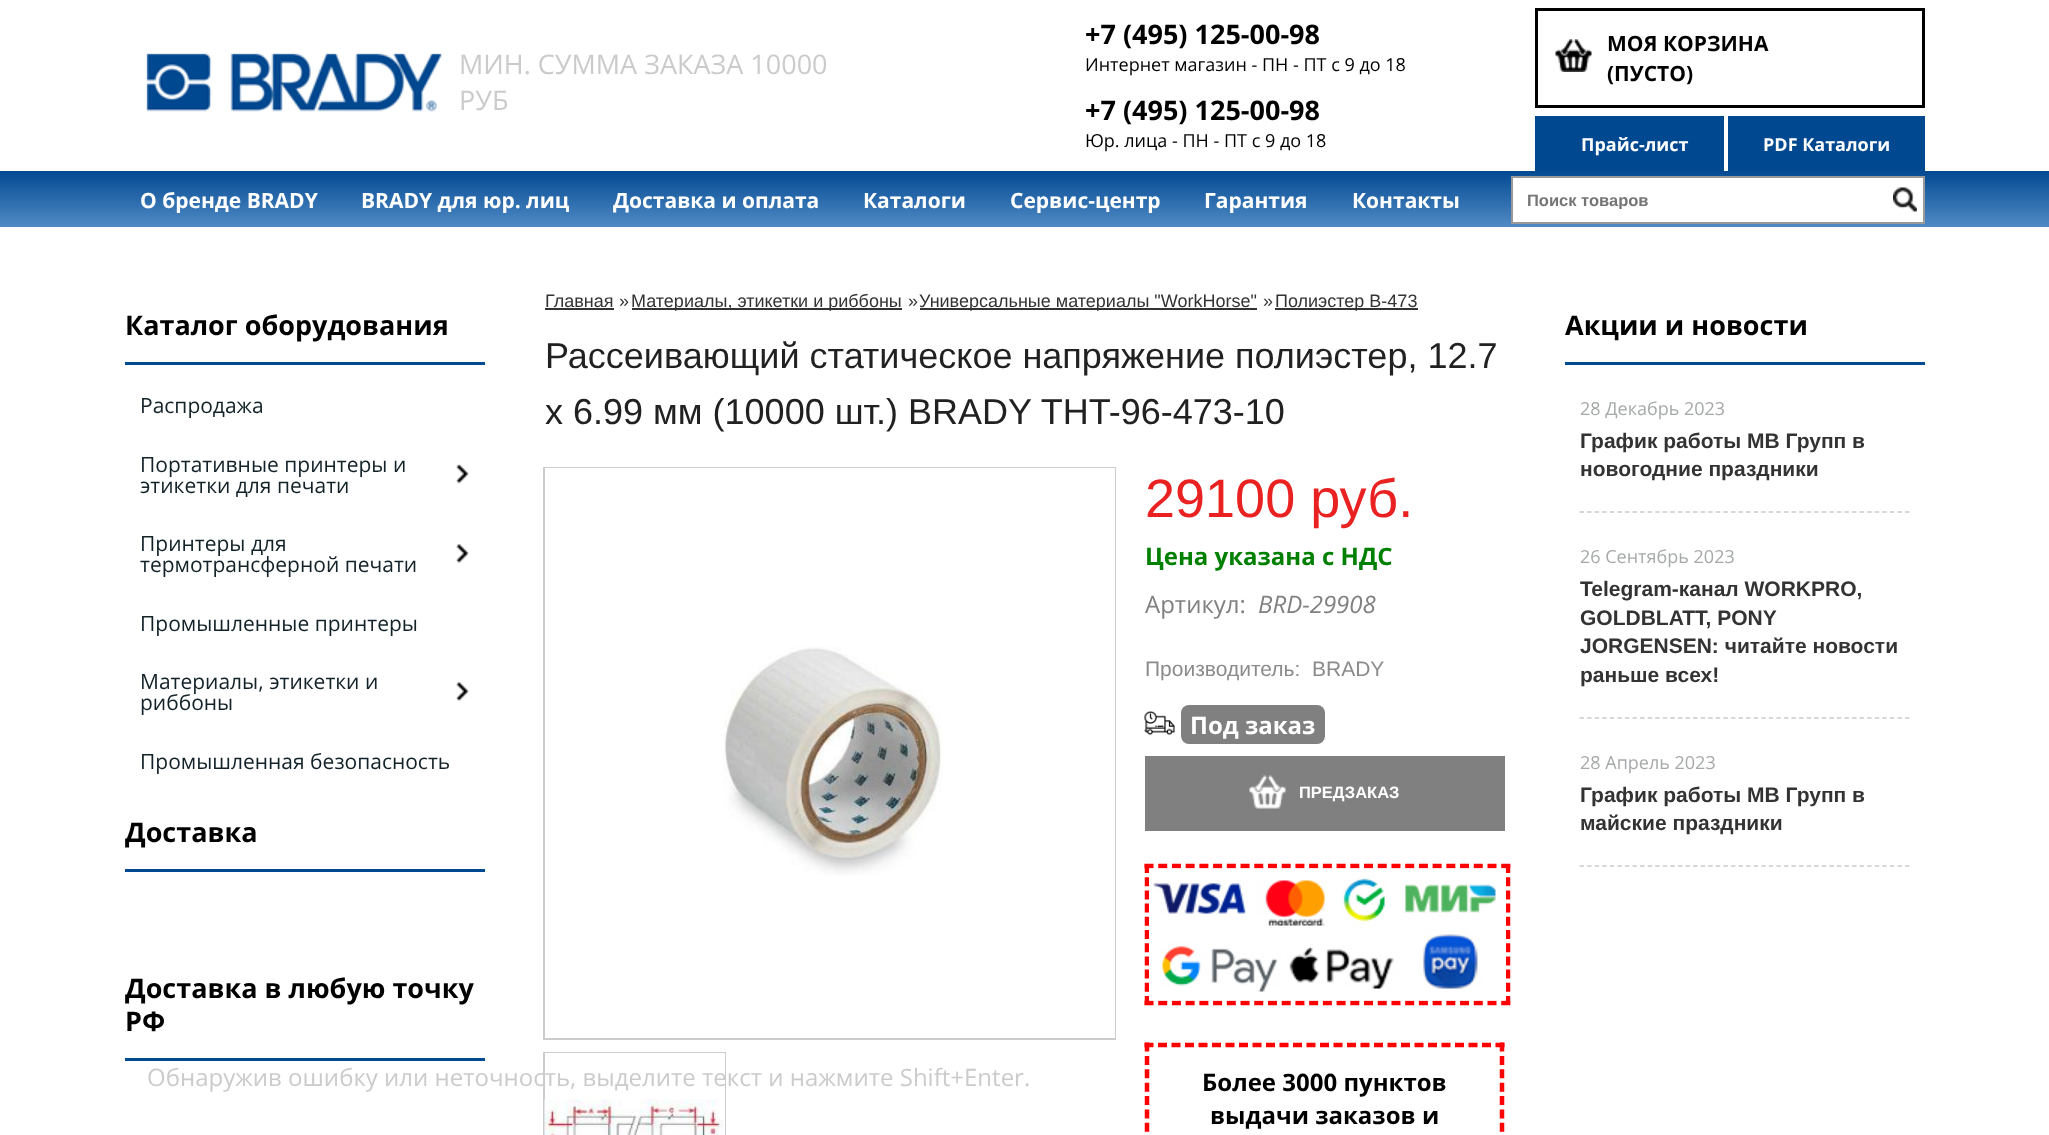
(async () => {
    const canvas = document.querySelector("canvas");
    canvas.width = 2049;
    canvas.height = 1135;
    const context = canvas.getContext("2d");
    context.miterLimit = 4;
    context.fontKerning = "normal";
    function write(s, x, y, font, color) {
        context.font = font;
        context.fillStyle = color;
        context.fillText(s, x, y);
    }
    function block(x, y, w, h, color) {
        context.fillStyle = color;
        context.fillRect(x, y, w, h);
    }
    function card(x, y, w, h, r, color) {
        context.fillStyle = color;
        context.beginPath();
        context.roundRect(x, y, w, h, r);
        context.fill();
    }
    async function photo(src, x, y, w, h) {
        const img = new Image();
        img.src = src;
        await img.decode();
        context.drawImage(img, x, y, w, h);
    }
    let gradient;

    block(0, 0, 2049, 1135, "rgb(255, 255, 255)");
    await photo("media/1.png", 146, 53, 296, 59);
    write("МИН. СУММА ЗАКАЗА 10000", 459, 74, "27px Open Sans", "rgb(204, 203, 203)");
    write("РУБ", 459, 110, "27px Open Sans", "rgb(204, 203, 203)");
    write("+7 (495) 125-00-98", 1085, 44, "bold 27px Open Sans", "rgb(0, 0, 0)");
    write("Интернет магазин - ПН - ПТ с 9 до 18", 1085, 71, "18px Open Sans", "rgb(0, 0, 0)");
    write("+7 (495) 125-00-98", 1085, 120, "bold 27px Open Sans", "rgb(0, 0, 0)");
    write("Юр. лица - ПН - ПТ с 9 до 18", 1085, 147, "18px Open Sans", "rgb(0, 0, 0)");
    context.strokeStyle = "rgb(0, 0, 0)";
    context.lineWidth = 3;
    context.strokeRect(1536.5, 9.5, 387, 97);
    await photo("media/2.png", 1555, 39, 37, 33);
    write("МОЯ КОРЗИНА", 1607, 51, "bold 21px Open Sans", "rgb(0, 0, 0)");
    write("(ПУСТО)", 1607, 81, "bold 21px Open Sans", "rgb(0, 0, 0)");
    block(1535, 116, 189, 55, "rgb(0, 72, 144)");
    write("Прайс-лист", 1581, 151, "bold 18px Open Sans", "rgb(255, 255, 255)");
    block(1728, 116, 197, 55, "rgb(0, 72, 144)");
    write("PDF Каталоги", 1763, 151, "bold 18px Open Sans", "rgb(255, 255, 255)");
    gradient = context.createLinearGradient(1025, 227, 1025, 171);
    gradient.addColorStop(0, "rgb(80, 138, 197)");
    gradient.addColorStop(1, "rgb(3, 74, 146)");
    context.fillStyle = gradient;
    context.fillRect(0, 171, 2049, 56);
    write("О бренде BRADY", 140, 208, "bold 21px Open Sans", "rgb(255, 255, 255)");
    write("BRADY для юр. лиц", 361, 208, "bold 21px Open Sans", "rgb(255, 255, 255)");
    write("Доставка и оплата", 613, 208, "bold 21px Open Sans", "rgb(255, 255, 255)");
    write("Каталоги", 863, 208, "bold 21px Open Sans", "rgb(255, 255, 255)");
    write("Сервис-центр", 1010, 208, "bold 21px Open Sans", "rgb(255, 255, 255)");
    write("Гарантия", 1204, 208, "bold 21px Open Sans", "rgb(255, 255, 255)");
    write("Контакты", 1352, 208, "bold 21px Open Sans", "rgb(255, 255, 255)");
    context.beginPath();
    context.rect(1512, 177, 412, 46);
    context.fill();
    context.strokeStyle = "rgb(153, 153, 153)";
    context.lineWidth = 2;
    context.stroke();
    context.save();
    context.beginPath();
    context.rect(1527, 191, 381, 18);
    context.clip();
    write("Поиск товаров", 1527, 206, "bold 16.5px Liberation Sans", "rgb(117, 117, 117)");
    context.restore();
    await photo("media/3.png", 1893, 187, 24, 25);
    block(125, 362, 360, 3, "rgb(0, 72, 144)");
    write("Каталог оборудования", 125, 335, "bold 27px Open Sans", "rgb(0, 0, 0)");
    write("Распродажа", 140, 413, "21px Open Sans", "rgb(19, 34, 41)");
    write("Портативные принтеры и", 140, 472, "21px Open Sans", "rgb(19, 34, 41)");
    write("этикетки для печати", 140, 493, "21px Open Sans", "rgb(19, 34, 41)");
    await photo("media/4.png", 456, 464, 13, 20);
    write("Принтеры для", 140, 551, "21px Open Sans", "rgb(19, 34, 41)");
    write("термотрансферной печати", 140, 572, "21px Open Sans", "rgb(19, 34, 41)");
    await photo("media/5.png", 456, 544, 13, 19);
    write("Промышленные принтеры", 140, 631, "21px Open Sans", "rgb(19, 34, 41)");
    write("Материалы, этикетки и", 140, 689, "21px Open Sans", "rgb(19, 34, 41)");
    write("риббоны", 140, 710, "21px Open Sans", "rgb(19, 34, 41)");
    await photo("media/5.png", 456, 682, 13, 19);
    write("Промышленная безопасность", 140, 769, "21px Open Sans", "rgb(19, 34, 41)");
    block(125, 869, 360, 3, "rgb(0, 72, 144)");
    write("Доставка", 125, 842, "bold 27px Open Sans", "rgb(0, 0, 0)");
    block(125, 1058, 360, 3, "rgb(0, 72, 144)");
    write("Доставка в любую точку", 125, 998, "bold 27px Open Sans", "rgb(0, 0, 0)");
    write("РФ", 125, 1031, "bold 27px Open Sans", "rgb(0, 0, 0)");
    write("Главная", 545, 307, "18px Liberation Sans", "rgb(51, 51, 51)");
    block(545, 308, 69, 2, "rgb(51, 51, 51)");
    write("»", 619, 307, "18px Liberation Sans", "rgb(51, 51, 51)");
    block(632, 308, 270, 2, "rgb(51, 51, 51)");
    write("Материалы, этикетки и риббоны", 631, 307, "18px Liberation Sans", "rgb(51, 51, 51)");
    write("»", 908, 307, "18px Liberation Sans", "rgb(51, 51, 51)");
    block(920, 308, 337, 2, "rgb(51, 51, 51)");
    write("Универсальные материалы \"WorkHorse\"", 919, 307, "18px Liberation Sans", "rgb(51, 51, 51)");
    write("»", 1263, 307, "18px Liberation Sans", "rgb(51, 51, 51)");
    block(1275, 308, 143, 2, "rgb(51, 51, 51)");
    write("Полиэстер B-473", 1275, 307, "18px Liberation Sans", "rgb(51, 51, 51)");
    write("Рассеивающий статическое напряжение полиэстер, 12.7", 545, 368, "36px Liberation Sans", "rgb(33, 33, 33)");
    write("x 6.99 мм (10000 шт.) BRADY THT-96-473-10", 545, 424, "36px Liberation Sans", "rgb(33, 33, 33)");
    context.strokeStyle = "rgb(204, 204, 204)";
    context.strokeRect(544, 468, 571, 571);
    block(545, 468, 570, 570, "rgb(255, 255, 255)");
    await photo("media/6.png", 723, 646, 219, 229);
    context.strokeRect(544, 1053, 181, 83);
    block(545, 1053, 180, 82, "rgb(255, 255, 255)");
    await photo("media/7.png", 544, 1099, 181, 36);
    write("29100 руб.", 1145, 517, "54px Liberation Sans", "rgb(233, 33, 33)");
    write("Цена указана с НДС", 1145, 565, "bold 24px Open Sans", "rgb(0, 128, 0)");
    write("Артикул:", 1145, 613, "24px Open Sans", "rgb(128, 128, 128)");
    write("BRD-29908", 1258, 613, "italic 24px Open Sans", "rgb(128, 128, 128)");
    write("Производитель:", 1145, 676, "21px Liberation Sans", "rgb(139, 139, 139)");
    write("BRADY", 1312, 676, "21px Liberation Sans", "rgb(139, 139, 139)");
    await photo("media/8.png", 1144, 710, 31, 26);
    card(1181, 705, 144, 39, 8, "rgb(128, 128, 128)");
    write("Под заказ", 1190, 734, "bold 24px Open Sans", "rgb(255, 255, 255)");
    block(1145, 756, 360, 75, "rgb(128, 128, 128)");
    await photo("media/9.png", 1249, 775, 37, 34);
    write("ПРЕДЗАКАЗ", 1299, 798, "bold 16.5px Liberation Sans", "rgb(255, 255, 255)");
    context.beginPath();
    context.moveTo(1144.5, 866);
    context.lineTo(1510.5, 866);
    context.strokeStyle = "rgb(255, 0, 0)";
    context.lineWidth = 4.5;
    context.setLineDash([9, 4.72]);
    context.stroke();
    context.beginPath();
    context.moveTo(1508, 864);
    context.lineTo(1508, 1005);
    context.setLineDash([9, 4.2]);
    context.stroke();
    context.beginPath();
    context.moveTo(1144.5, 1003);
    context.lineTo(1510.5, 1003);
    context.setLineDash([9, 4.72]);
    context.stroke();
    context.beginPath();
    context.moveTo(1147, 864);
    context.lineTo(1147, 1005);
    context.setLineDash([9, 4.2]);
    context.stroke();
    await photo("media/10.png", 1149, 868, 357, 133);
    context.beginPath();
    context.moveTo(1144.5, 1045);
    context.lineTo(1504.5, 1045);
    context.setLineDash([9, 4.5]);
    context.stroke();
    context.beginPath();
    context.moveTo(1502, 1042.5);
    context.lineTo(1502, 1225.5);
    context.setLineDash([9, 4.38]);
    context.stroke();
    context.beginPath();
    context.moveTo(1147, 1042.5);
    context.lineTo(1147, 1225.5);
    context.stroke();
    write("Более 3000 пунктов", 1202, 1091, "bold 24px Open Sans", "rgb(0, 0, 0)");
    write("выдачи заказов и", 1210, 1124, "bold 24px Open Sans", "rgb(0, 0, 0)");
    block(1565, 362, 360, 3, "rgb(0, 72, 144)");
    write("Акции и новости", 1565, 335, "bold 27px Open Sans", "rgb(0, 0, 0)");
    context.beginPath();
    context.moveTo(1579.5, 512);
    context.lineTo(1909.5, 512);
    context.strokeStyle = "rgb(204, 204, 204)";
    context.lineWidth = 1.5;
    context.setLineDash([4.5, 3.07]);
    context.stroke();
    write("28 Декабрь 2023", 1580, 415, "18px Open Sans", "rgb(166, 169, 170)");
    write("График работы МВ Групп в", 1580, 448, "bold 21px Liberation Sans", "rgb(51, 51, 51)");
    write("новогодние праздники", 1580, 476, "bold 21px Liberation Sans", "rgb(51, 51, 51)");
    context.beginPath();
    context.moveTo(1579.5, 718);
    context.lineTo(1909.5, 718);
    context.stroke();
    write("26 Сентябрь 2023", 1580, 563, "18px Open Sans", "rgb(166, 169, 170)");
    write("Telegram-канал WORKPRO,", 1580, 596, "bold 21px Liberation Sans", "rgb(51, 51, 51)");
    write("GOLDBLATT, PONY", 1580, 625, "bold 21px Liberation Sans", "rgb(51, 51, 51)");
    write("JORGENSEN: читайте новости", 1580, 653, "bold 21px Liberation Sans", "rgb(51, 51, 51)");
    write("раньше всех!", 1580, 682, "bold 21px Liberation Sans", "rgb(51, 51, 51)");
    context.beginPath();
    context.moveTo(1579.5, 866);
    context.lineTo(1909.5, 866);
    context.stroke();
    write("28 Апрель 2023", 1580, 769, "18px Open Sans", "rgb(166, 169, 170)");
    write("График работы МВ Групп в", 1580, 802, "bold 21px Liberation Sans", "rgb(51, 51, 51)");
    write("майские праздники", 1580, 830, "bold 21px Liberation Sans", "rgb(51, 51, 51)");
    write("Обнаружив ошибку или неточность, выделите текст и нажмите Shift+Enter.", 147, 1086, "24px Open Sans", "rgb(204, 203, 203)");
})();
